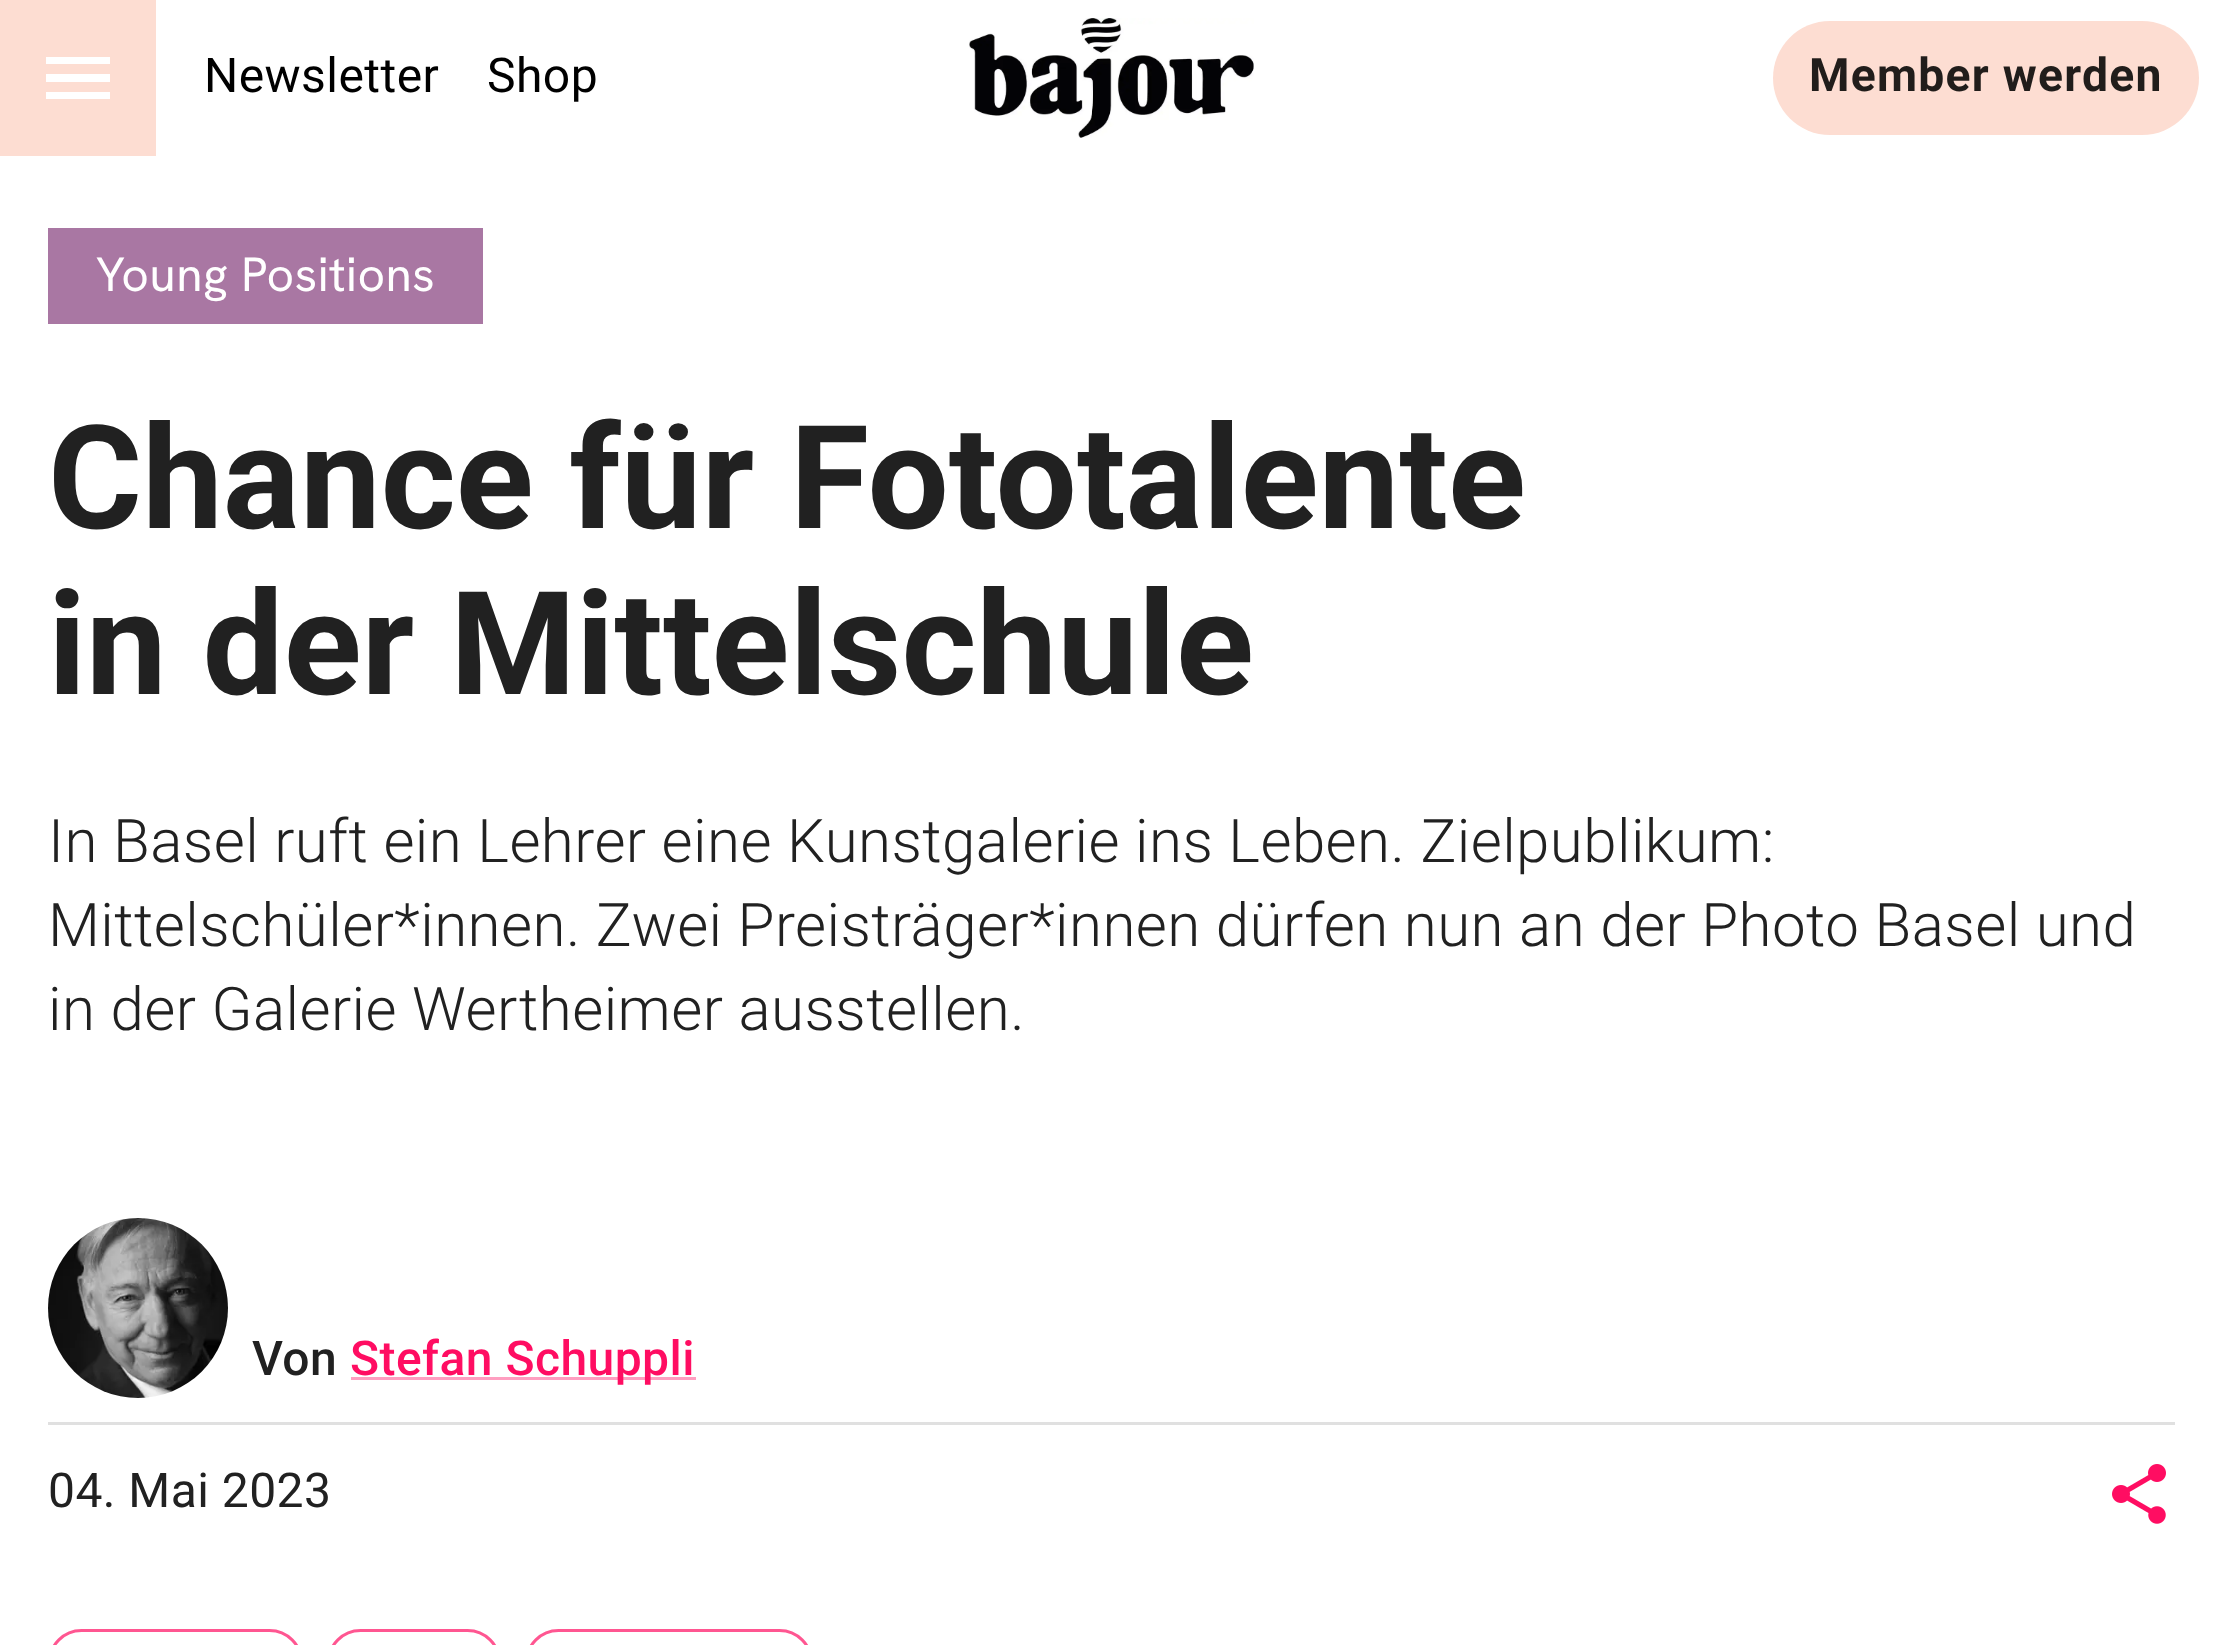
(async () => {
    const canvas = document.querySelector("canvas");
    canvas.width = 2221;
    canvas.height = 1645;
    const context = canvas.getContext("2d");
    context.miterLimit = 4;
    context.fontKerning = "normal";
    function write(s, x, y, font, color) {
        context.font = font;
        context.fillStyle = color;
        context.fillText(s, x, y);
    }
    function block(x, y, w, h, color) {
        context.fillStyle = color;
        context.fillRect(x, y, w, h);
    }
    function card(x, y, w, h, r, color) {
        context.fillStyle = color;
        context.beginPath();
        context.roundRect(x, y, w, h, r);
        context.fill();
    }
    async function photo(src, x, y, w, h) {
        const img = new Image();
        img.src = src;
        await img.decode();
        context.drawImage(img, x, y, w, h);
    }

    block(0, 0, 2221, 1645, "rgb(255, 255, 255)");
    block(0, 0, 156, 156, "rgb(253, 221, 210)");
    context.fillStyle = "rgb(255, 255, 255)";
    context.beginPath();
    context.moveTo(46, 99);
    context.lineTo(110, 99);
    context.lineTo(110, 92);
    context.lineTo(46, 92);
    context.closePath();
    context.moveTo(46, 82);
    context.lineTo(110, 82);
    context.lineTo(110, 74);
    context.lineTo(46, 74);
    context.closePath();
    context.moveTo(46, 57);
    context.lineTo(46, 64);
    context.lineTo(110, 64);
    context.lineTo(110, 57);
    context.closePath();
    context.fill();
    context.letterSpacing = "0.45px";
    write("Newsletter", 204, 92, "48px Roboto", "rgb(0, 0, 0)");
    write("Shop", 487, 92, "48px Roboto", "rgb(0, 0, 0)");
    await photo("media/1.png", 969, 18, 285, 120);
    card(1773, 21, 426, 114, 57, "rgb(253, 221, 210)");
    context.letterSpacing = "1.25px";
    write("Member werden", 1809, 91, "bold 46.25px Roboto", "rgb(33, 29, 27)");
    block(48, 228, 435, 96, "rgb(169, 119, 163)");
    context.letterSpacing = "0.45px";
    write("Young Positions", 96, 291, "48px Hanken Grotesk", "rgb(255, 255, 255)");
    context.letterSpacing = "0px";
    write("Chance für Fototalente", 48, 528, "bold 144px Roboto", "rgb(33, 33, 33)");
    write("in der Mittelschule", 48, 694, "bold 144px Roboto", "rgb(33, 33, 33)");
    context.letterSpacing = "0.45px";
    write("In Basel ruft ein Lehrer eine Kunstgalerie ins Leben. Zielpublikum:", 48, 862, "300 60px Roboto", "rgb(33, 33, 33)");
    write("Mittelschüler*innen. Zwei Preisträger*innen dürfen nun an der Photo Basel und", 48, 946, "300 60px Roboto", "rgb(33, 33, 33)");
    write("in der Galerie Wertheimer ausstellen.", 48, 1030, "300 60px Roboto", "rgb(33, 33, 33)");
    block(48, 1422, 2127, 3, "rgb(224, 224, 224)");
    await photo("media/2.png", 48, 1218, 180, 180);
    write("Von", 252, 1375, "500 48px Roboto", "rgb(33, 33, 33)");
    block(351, 1377, 345, 3, "rgb(255, 158, 192)");
    write("Stefan Schuppli", 350, 1375, "500 48px Roboto", "rgb(255, 13, 98)");
    write("04. Mai 2023", 48, 1507, "48px Roboto", "rgb(33, 33, 33)");
    await photo("media/3.png", 2112, 1464, 54, 60);
    context.beginPath();
    context.roundRect(49.5, 1630.5, 252, 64, 46.5);
    context.strokeStyle = "rgb(255, 86, 145)";
    context.lineWidth = 3;
    context.stroke();
    context.beginPath();
    context.roundRect(328.5, 1630.5, 171, 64, 46.5);
    context.stroke();
    context.beginPath();
    context.roundRect(526.5, 1630.5, 285, 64, 46.5);
    context.stroke();
})();
